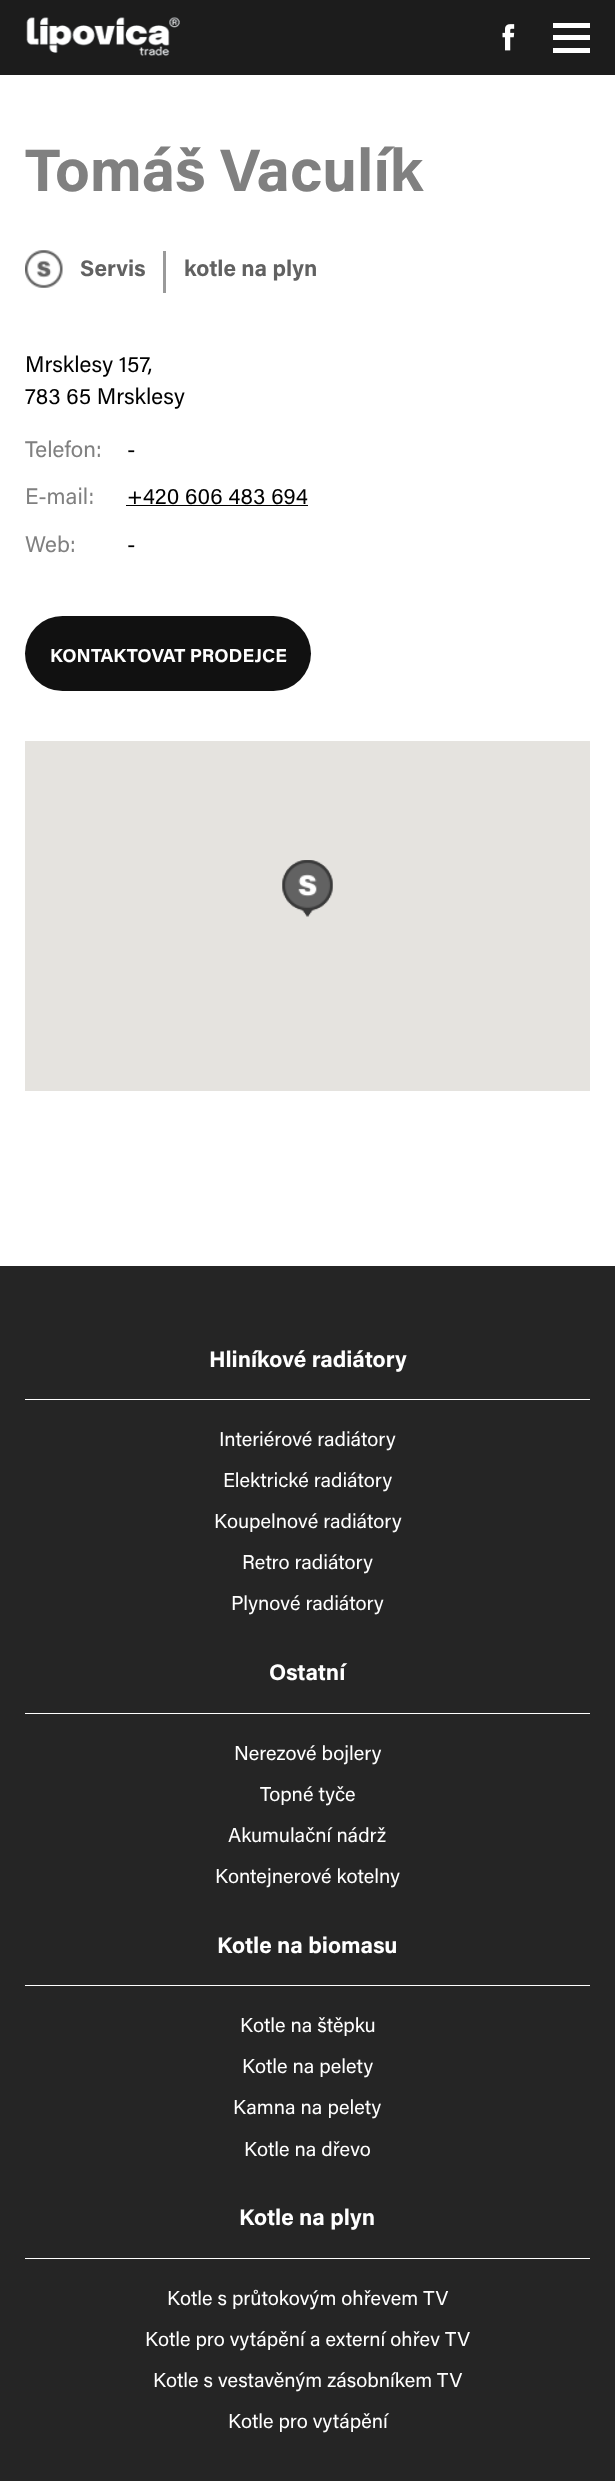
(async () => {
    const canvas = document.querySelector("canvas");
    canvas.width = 615;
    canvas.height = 2481;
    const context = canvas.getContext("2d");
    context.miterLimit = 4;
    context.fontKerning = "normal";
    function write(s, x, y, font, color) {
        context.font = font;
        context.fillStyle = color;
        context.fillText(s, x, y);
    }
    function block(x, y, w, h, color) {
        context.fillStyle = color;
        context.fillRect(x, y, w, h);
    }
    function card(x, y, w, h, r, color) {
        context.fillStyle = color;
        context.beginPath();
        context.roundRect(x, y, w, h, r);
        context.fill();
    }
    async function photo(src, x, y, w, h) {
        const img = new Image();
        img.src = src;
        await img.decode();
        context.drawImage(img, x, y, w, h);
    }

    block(0, 0, 615, 2481, "rgb(255, 255, 255)");
    block(0, 0, 615, 75, "rgb(28, 28, 28)");
    await photo("media/1.png", 26, 17, 154, 39);
    await photo("media/2.png", 502, 24, 13, 27);
    block(553, 23, 37, 5, "rgb(255, 255, 255)");
    block(553, 35, 37, 5, "rgb(255, 255, 255)");
    block(553, 48, 37, 5, "rgb(255, 255, 255)");
    write("Tomáš Vaculík", 25, 191, "bold 60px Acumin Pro", "rgb(128, 128, 128)");
    await photo("media/3.png", 25, 250, 38, 38);
    write("Servis", 80, 276, "bold 22.5px Acumin Pro", "rgb(97, 97, 97)");
    block(163, 251, 3, 42, "rgb(154, 154, 154)");
    write("kotle na plyn", 184, 276, "bold 22.5px Acumin Pro", "rgb(97, 97, 97)");
    write("Mrsklesy 157,", 25, 372, "22.5px Acumin Pro", "rgb(0, 0, 0)");
    write("783 65 Mrsklesy", 25, 404, "22.5px Acumin Pro", "rgb(0, 0, 0)");
    write("Telefon:", 25, 457, "22.5px Acumin Pro", "rgb(128, 128, 128)");
    write("-", 127, 457, "22.5px Acumin Pro", "rgb(0, 0, 0)");
    write("E-mail:", 25, 504, "22.5px Acumin Pro", "rgb(128, 128, 128)");
    write("+420 606 483 694", 127, 504, "22.5px Acumin Pro", "rgb(0, 0, 0)");
    block(126, 505, 182, 1, "rgb(0, 0, 0)");
    write("Web:", 25, 552, "22.5px Acumin Pro", "rgb(128, 128, 128)");
    write("-", 127, 552, "22.5px Acumin Pro", "rgb(0, 0, 0)");
    card(25, 616, 286, 75, 37.5, "rgb(17, 17, 17)");
    write("KONTAKTOVAT PRODEJCE", 50, 662, "bold 18.75px Acumin Pro", "rgb(255, 255, 255)");
    block(25, 741, 565, 350, "rgb(229, 227, 223)");
    await photo("media/4.png", 282, 860, 51, 57);
    await photo("media/5.png", 282, 860, 51, 57);
    block(0, 1266, 615, 1215, "rgb(37, 37, 37)");
    block(25, 1399, 565, 1, "rgb(255, 255, 255)");
    write("Hliníkové radiátory", 209, 1367, "bold 22.5px Acumin Pro", "rgb(255, 255, 255)");
    write("Interiérové radiátory", 219, 1446, "20px Acumin Pro", "rgb(255, 255, 255)");
    write("Elektrické radiátory", 223, 1487, "20px Acumin Pro", "rgb(255, 255, 255)");
    write("Koupelnové radiátory", 214, 1528, "20px Acumin Pro", "rgb(255, 255, 255)");
    write("Retro radiátory", 242, 1569, "20px Acumin Pro", "rgb(255, 255, 255)");
    write("Plynové radiátory", 231, 1610, "20px Acumin Pro", "rgb(255, 255, 255)");
    block(25, 1713, 565, 1, "rgb(255, 255, 255)");
    write("Ostatní", 269, 1680, "bold 22.5px Acumin Pro", "rgb(255, 255, 255)");
    write("Nerezové bojlery", 234, 1760, "20px Acumin Pro", "rgb(255, 255, 255)");
    write("Topné tyče", 260, 1801, "20px Acumin Pro", "rgb(255, 255, 255)");
    write("Akumulační nádrž", 228, 1842, "20px Acumin Pro", "rgb(255, 255, 255)");
    write("Kontejnerové kotelny", 215, 1883, "20px Acumin Pro", "rgb(255, 255, 255)");
    block(25, 1985, 565, 1, "rgb(255, 255, 255)");
    write("Kotle na biomasu", 217, 1953, "bold 22.5px Acumin Pro", "rgb(255, 255, 255)");
    write("Kotle na štěpku", 240, 2032, "20px Acumin Pro", "rgb(255, 255, 255)");
    write("Kotle na pelety", 242, 2073, "20px Acumin Pro", "rgb(255, 255, 255)");
    write("Kamna na pelety", 233, 2114, "20px Acumin Pro", "rgb(255, 255, 255)");
    write("Kotle na dřevo", 244, 2156, "20px Acumin Pro", "rgb(255, 255, 255)");
    block(25, 2258, 565, 1, "rgb(255, 255, 255)");
    write("Kotle na plyn", 239, 2225, "bold 22.5px Acumin Pro", "rgb(255, 255, 255)");
    write("Kotle s průtokovým ohřevem TV", 167, 2305, "20px Acumin Pro", "rgb(255, 255, 255)");
    write("Kotle pro vytápění a externí ohřev TV", 145, 2346, "20px Acumin Pro", "rgb(255, 255, 255)");
    write("Kotle s vestavěným zásobníkem TV", 153, 2387, "20px Acumin Pro", "rgb(255, 255, 255)");
    write("Kotle pro vytápění", 228, 2428, "20px Acumin Pro", "rgb(255, 255, 255)");
})();
